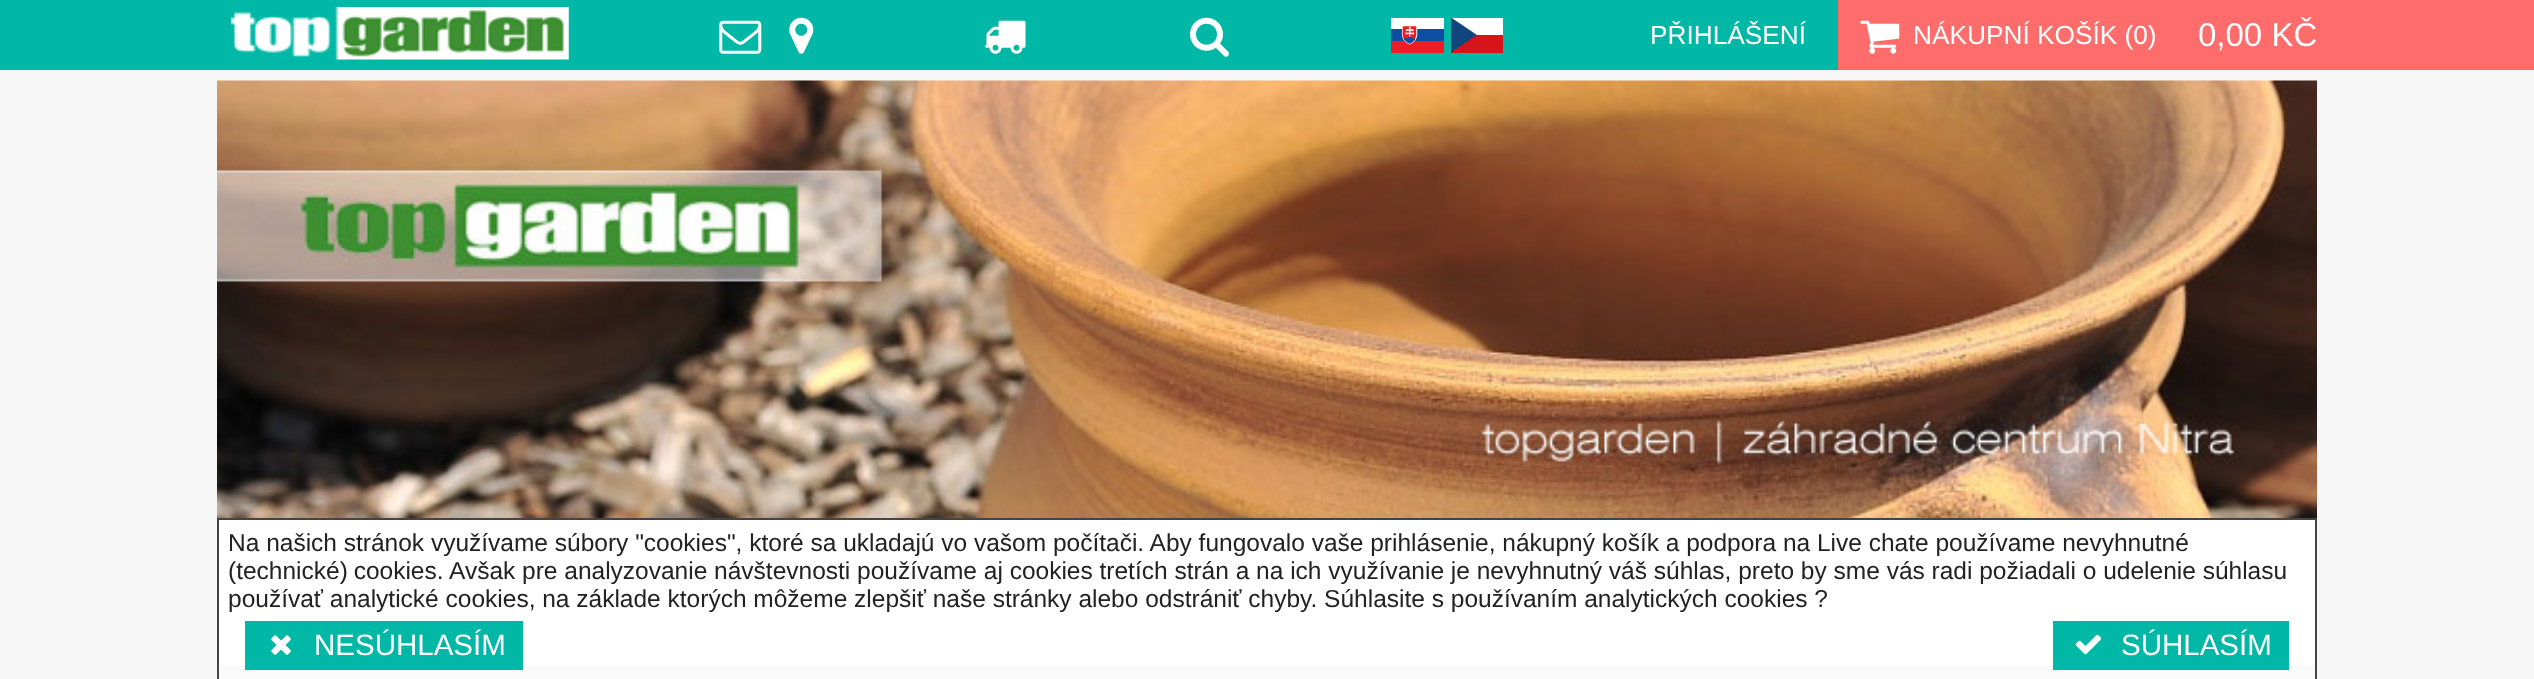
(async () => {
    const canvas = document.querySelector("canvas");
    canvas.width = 2534;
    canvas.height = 679;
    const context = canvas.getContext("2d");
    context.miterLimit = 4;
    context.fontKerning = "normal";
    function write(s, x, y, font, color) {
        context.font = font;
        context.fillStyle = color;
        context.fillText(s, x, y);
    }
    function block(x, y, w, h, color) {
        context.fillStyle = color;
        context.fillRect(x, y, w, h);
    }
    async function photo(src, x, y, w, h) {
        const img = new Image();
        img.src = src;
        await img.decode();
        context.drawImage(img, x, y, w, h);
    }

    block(0, 0, 2534, 679, "rgb(247, 247, 247)");
    block(0, 0, 1838, 70, "rgb(1, 184, 166)");
    block(1838, 0, 696, 70, "rgb(255, 108, 108)");
    await photo("media/1.png", 231, 7, 338, 53);
    await photo("media/2.png", 719, 20, 43, 34);
    await photo("media/3.png", 789, 17, 25, 37);
    await photo("media/4.png", 985, 20, 41, 34);
    await photo("media/5.png", 1190, 17, 39, 40);
    await photo("media/6.png", 1391, 18, 53, 35);
    block(1451, 18, 52, 17, "rgb(255, 255, 255)");
    block(1451, 35, 52, 18, "rgb(215, 20, 26)");
    context.fillStyle = "rgb(17, 69, 126)";
    context.beginPath();
    context.moveTo(1477, 35);
    context.lineTo(1451, 17.5);
    context.lineTo(1451, 52.5);
    context.closePath();
    context.fill();
    write("PŘIHLÁŠENÍ", 1650, 44, "26.25px Liberation Sans", "rgb(255, 255, 255)");
    await photo("media/7.png", 1860, 20, 40, 34);
    write("NÁKUPNÍ KOŠÍK (0)", 1913, 44, "26.25px Liberation Sans", "rgb(255, 255, 255)");
    write("0,00 KČ", 2198, 46, "33px Liberation Sans", "rgb(255, 255, 255)");
    await photo("media/8.png", 217, 80, 2100, 438);
    block(219, 520, 2096, 145, "rgb(255, 255, 255)");
    block(219, 665, 2096, 14, "rgb(231, 231, 231)");
    block(219, 665, 2096, 14, "rgba(255, 255, 255, 0.8)");
    block(217, 518, 2100, 2, "rgb(68, 68, 68)");
    block(2315, 518, 2, 161, "rgb(68, 68, 68)");
    block(217, 518, 2, 161, "rgb(68, 68, 68)");
    write("Na našich stránok využívame súbory \"cookies\", ktoré sa ukladajú vo vašom počítači. Aby fungovalo vaše prihlásenie, nákupný košík a podpora na Live chate používame nevyhnutné", 228, 551, "24.5px Liberation Sans", "rgb(34, 34, 34)");
    context.wordSpacing = "-1px";
    write("(technické) cookies.", 228, 579, "24.5px Liberation Sans", "rgb(34, 34, 34)");
    context.wordSpacing = "0px";
    write("Avšak pre analyzovanie návštevnosti používame aj cookies tretích strán a na ich využívanie je nevyhnutný váš súhlas, preto by sme vás radi požiadali o udelenie súhlasu", 449, 579, "24.5px Liberation Sans", "rgb(34, 34, 34)");
    write("používať analytické cookies, na základe ktorých môžeme zlepšiť naše stránky alebo odstrániť chyby. Súhlasite s používaním analytických cookies ?", 228, 607, "24.5px Liberation Sans", "rgb(34, 34, 34)");
    block(245, 621, 278, 49, "rgb(1, 184, 166)");
    await photo("media/9.png", 271, 635, 20, 20);
    write("NESÚHLASÍM", 314, 655, "29.5px Liberation Sans", "rgb(255, 255, 255)");
    block(2053, 621, 236, 49, "rgb(1, 184, 166)");
    await photo("media/10.png", 2075, 634, 27, 21);
    write("SÚHLASÍM", 2121, 655, "29.5px Liberation Sans", "rgb(255, 255, 255)");
})();
